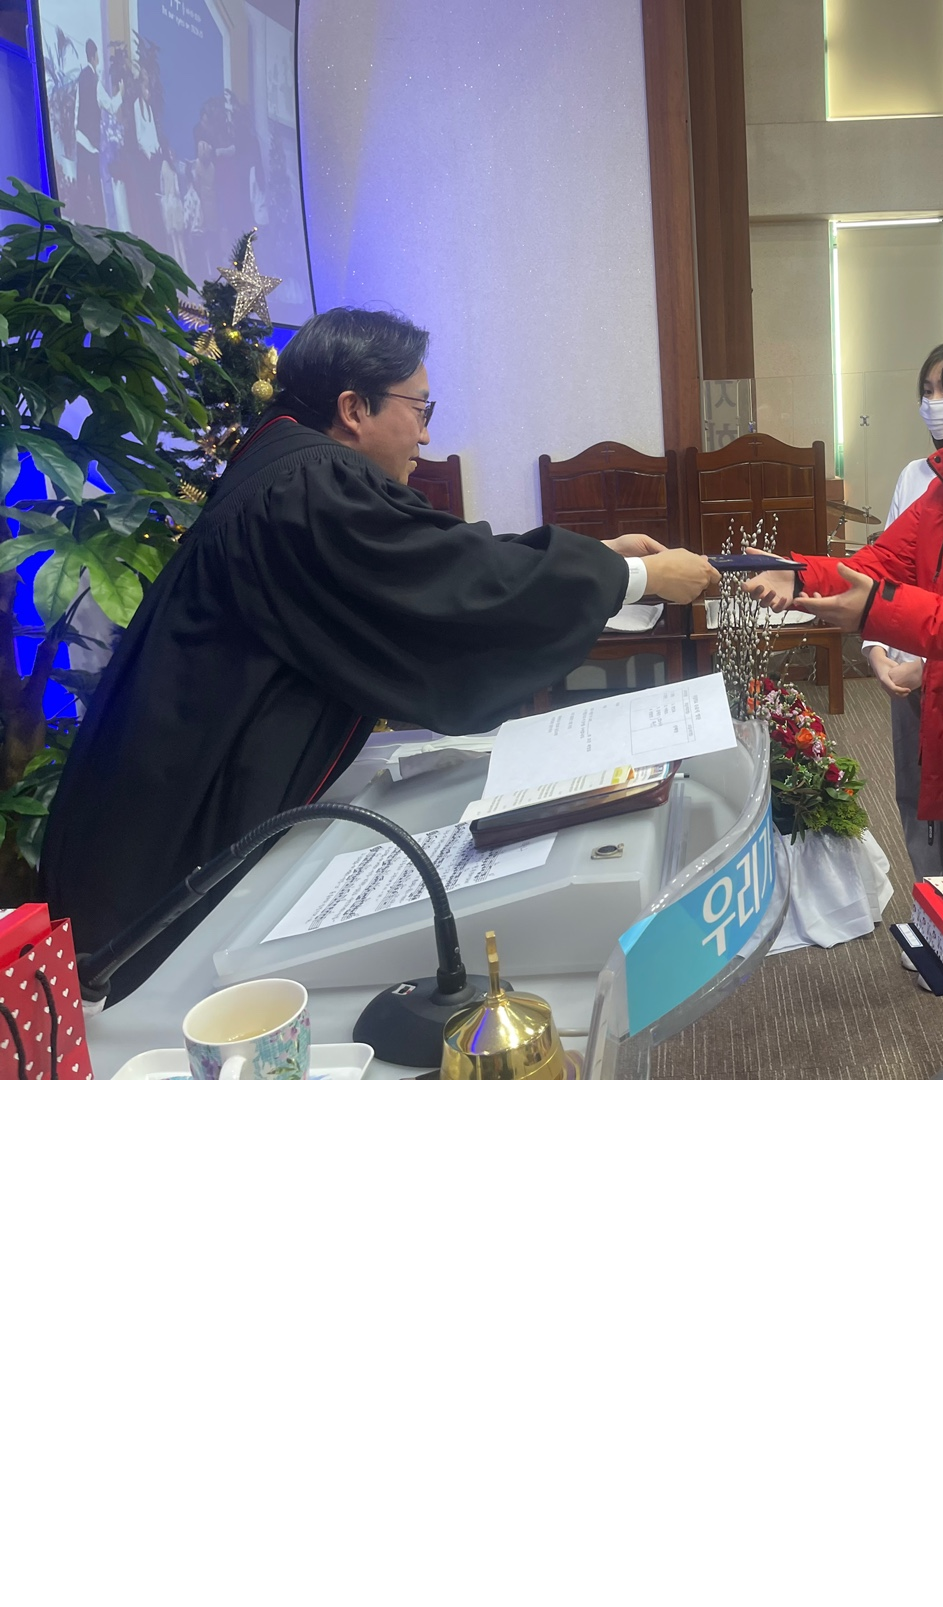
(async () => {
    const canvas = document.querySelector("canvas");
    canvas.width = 943;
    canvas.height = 1607;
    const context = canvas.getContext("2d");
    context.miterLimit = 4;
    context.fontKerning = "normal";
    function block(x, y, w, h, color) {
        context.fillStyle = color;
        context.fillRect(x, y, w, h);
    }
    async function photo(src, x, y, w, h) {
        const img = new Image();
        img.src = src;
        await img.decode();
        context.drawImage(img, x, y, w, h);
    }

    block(0, 0, 943, 1607, "rgb(255, 255, 255)");
    await photo("media/1.png", 0, 0, 943, 1080);
})();
